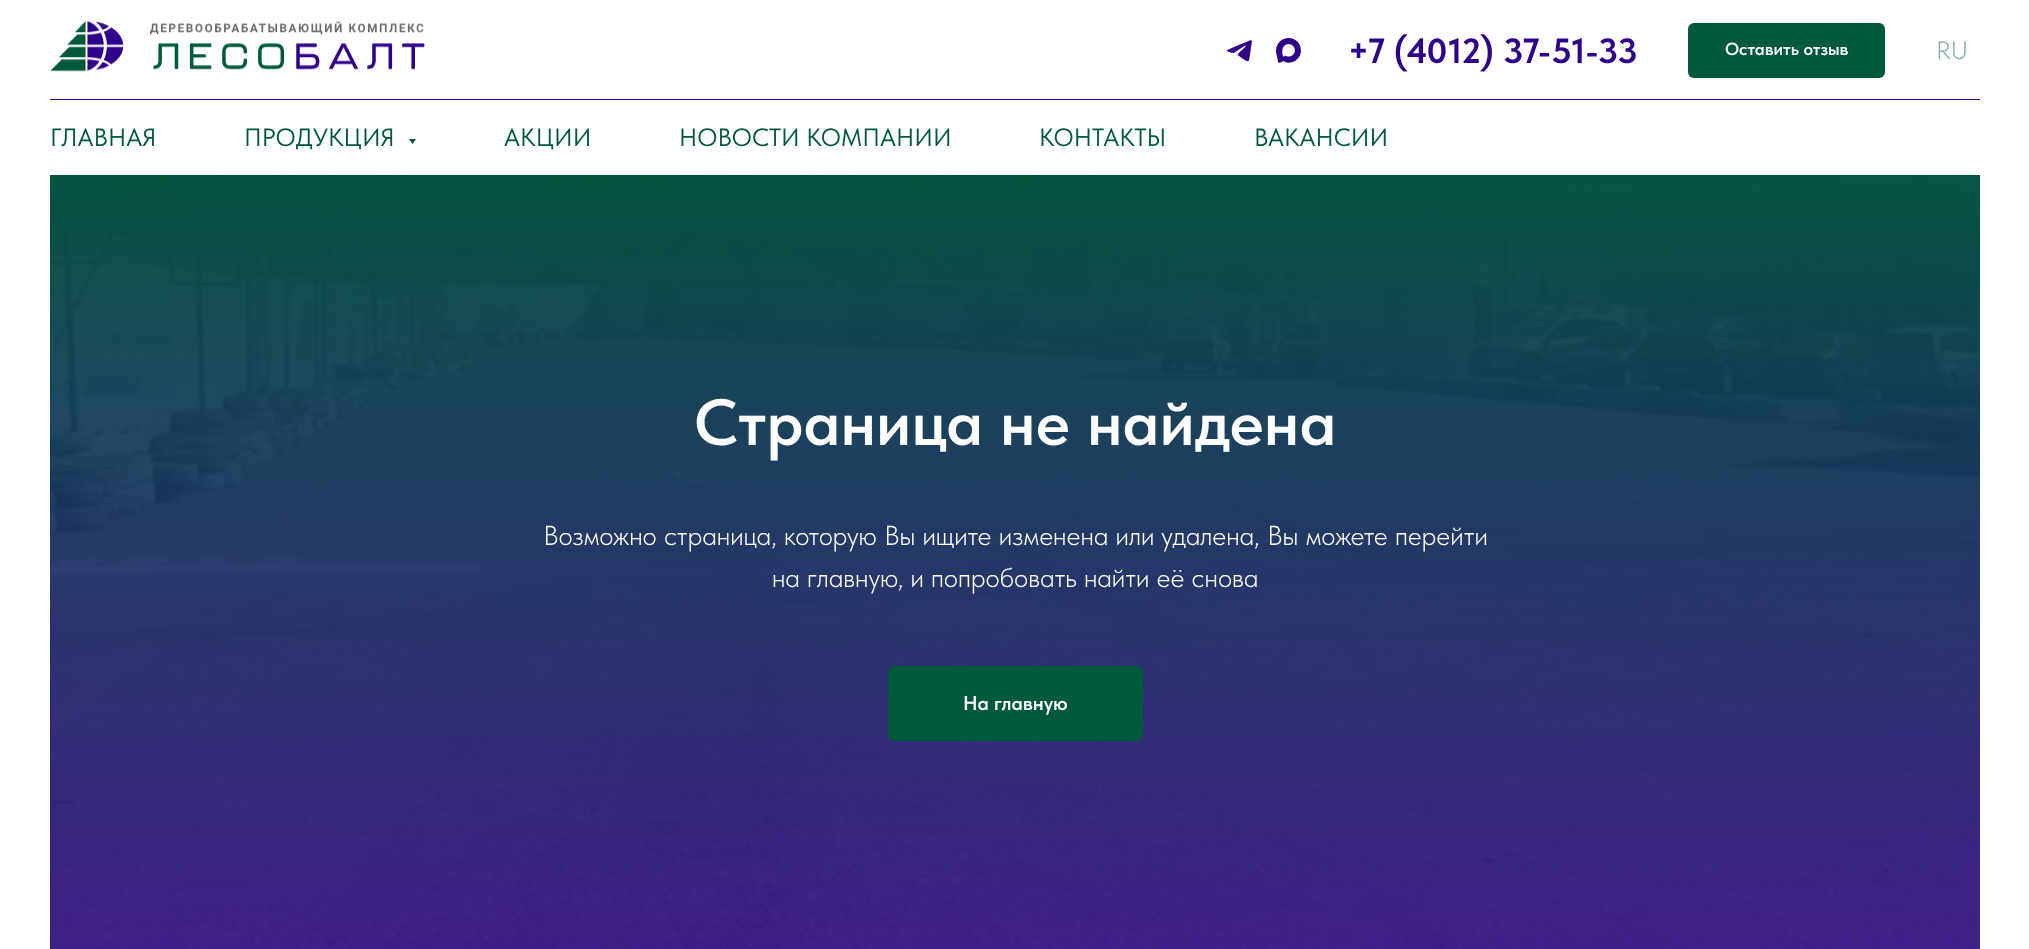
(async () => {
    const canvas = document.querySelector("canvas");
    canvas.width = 2029;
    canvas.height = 949;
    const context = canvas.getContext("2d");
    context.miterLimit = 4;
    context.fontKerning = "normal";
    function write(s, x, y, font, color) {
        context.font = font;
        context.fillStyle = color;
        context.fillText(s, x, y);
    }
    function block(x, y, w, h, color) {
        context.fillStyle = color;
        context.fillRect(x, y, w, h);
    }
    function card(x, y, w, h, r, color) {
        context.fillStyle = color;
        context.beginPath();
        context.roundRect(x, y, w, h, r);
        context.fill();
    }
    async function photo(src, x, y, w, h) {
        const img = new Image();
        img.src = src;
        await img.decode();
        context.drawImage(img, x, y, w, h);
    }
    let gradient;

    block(0, 0, 2029, 949, "rgb(255, 255, 255)");
    await photo("media/1.png", 50, 21, 375, 51);
    await photo("media/2.png", 1226, 40, 26, 22);
    await photo("media/3.png", 1276, 38, 25, 25);
    write("+7 (4012) 37-51-33", 1348, 63, "bold 35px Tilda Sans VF", "rgb(47, 0, 138)");
    card(1688, 23, 197, 55, 6, "rgb(1, 89, 59)");
    write("Оставить отзыв", 1725, 55, "600 17.5px Tilda Sans VF", "rgb(255, 255, 255)");
    write("RU", 1936, 59, "300 25px Tilda Sans VF", "rgb(128, 172, 157)");
    block(50, 99, 1930, 1, "rgb(47, 0, 138)");
    write("ГЛАВНАЯ", 50, 146, "25px Tilda Sans VF", "rgb(1, 89, 59)");
    write("ПРОДУКЦИЯ", 244, 146, "25px Tilda Sans VF", "rgb(1, 89, 59)");
    context.beginPath();
    context.moveTo(409, 139);
    context.lineTo(416, 139);
    context.lineTo(412.5, 144);
    context.closePath();
    context.fill();
    write("АКЦИИ", 504, 146, "25px Tilda Sans VF", "rgb(1, 89, 59)");
    write("НОВОСТИ КОМПАНИИ", 679, 146, "25px Tilda Sans VF", "rgb(1, 89, 59)");
    write("КОНТАКТЫ", 1039, 146, "25px Tilda Sans VF", "rgb(1, 89, 59)");
    write("ВАКАНСИИ", 1254, 146, "25px Tilda Sans VF", "rgb(1, 89, 59)");
    await photo("media/4.png", 50, 175, 1930, 774);
    gradient = context.createLinearGradient(1015, 125, 1015, 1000);
    gradient.addColorStop(0, "rgb(1, 89, 59)");
    gradient.addColorStop(1, "rgba(47, 0, 138, 0.8)");
    context.fillStyle = gradient;
    context.fillRect(50, 175, 1930, 774);
    write("Страница не найдена", 694, 445, "600 65px Tilda Sans VF", "rgb(255, 255, 255)");
    write("Возможно страница, которую Вы ищите изменена или удалена, Вы можете перейти", 543, 545, "300 27.5px Tilda Sans VF", "rgb(255, 255, 255)");
    write("на главную, и попробовать найти её снова", 772, 587, "300 27.5px Tilda Sans VF", "rgb(255, 255, 255)");
    card(888, 666, 255, 75, 6, "rgb(1, 89, 59)");
    write("На главную", 963, 710, "600 20px Tilda Sans VF", "rgb(255, 255, 255)");
})();
